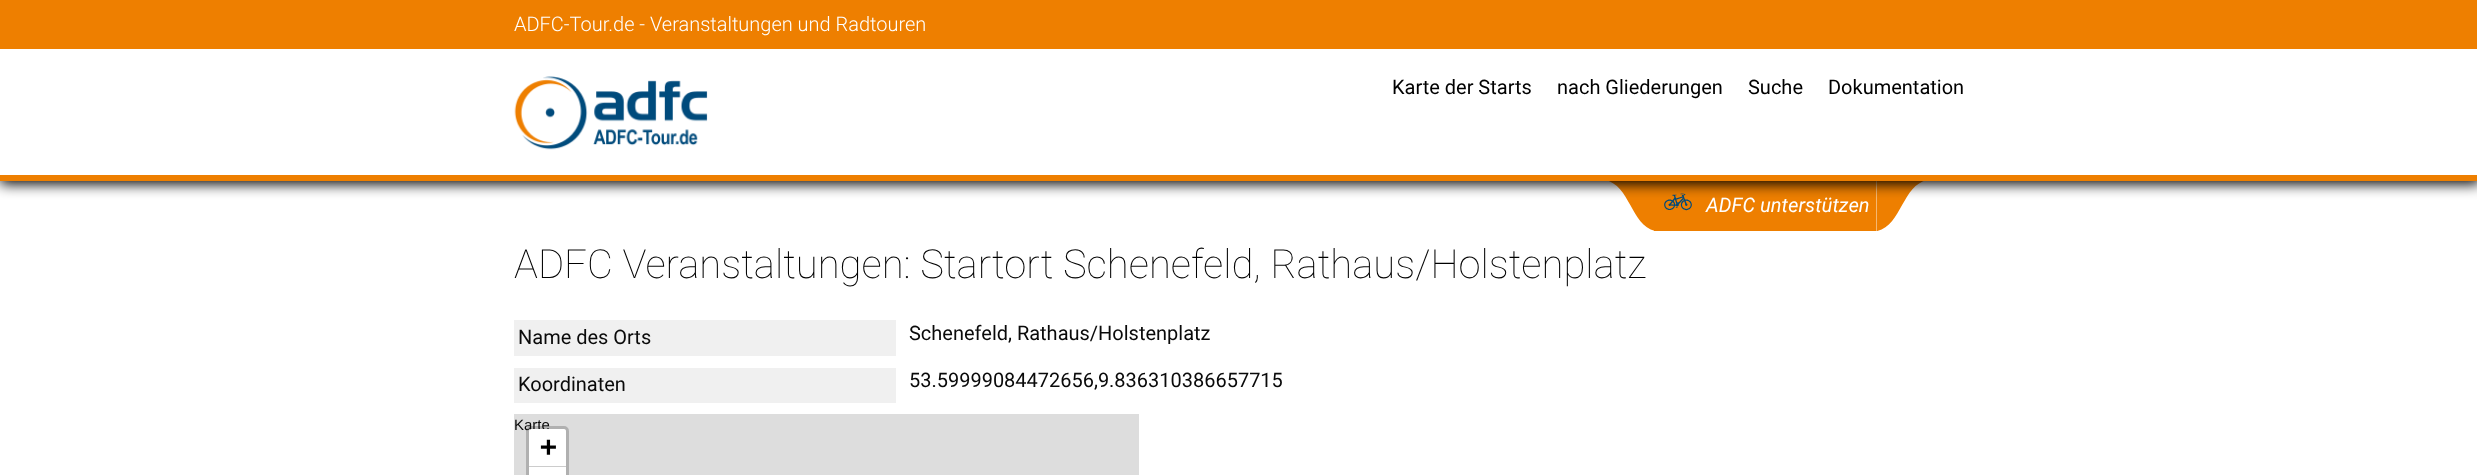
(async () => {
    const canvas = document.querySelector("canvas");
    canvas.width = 2477;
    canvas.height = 475;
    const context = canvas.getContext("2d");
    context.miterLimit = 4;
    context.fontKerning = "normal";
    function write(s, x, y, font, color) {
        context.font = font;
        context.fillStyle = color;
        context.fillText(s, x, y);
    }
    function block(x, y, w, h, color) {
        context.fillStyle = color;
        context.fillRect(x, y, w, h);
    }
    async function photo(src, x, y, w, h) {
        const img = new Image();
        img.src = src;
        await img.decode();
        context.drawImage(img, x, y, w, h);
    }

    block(0, 0, 2477, 475, "rgb(255, 255, 255)");
    block(1654, 181, 222, 50, "rgb(238, 127, 0)");
    await photo("media/2.png", 1609, 181, 45, 50);
    await photo("media/3.png", 1664, 193, 28, 18);
    await photo("media/4.png", 1876, 181, 48, 50);
    context.fillStyle = "rgb(0, 0, 0)";
    context.filter = "blur(7px)";
    context.beginPath();
    context.rect(0, 49, 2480, 135);
    context.fill();
    context.filter = "none";
    block(0, 0, 2477, 49, "rgb(238, 127, 0)");
    write("ADFC-Tour.de - Veranstaltungen und Radtouren", 514, 31, "300 20px Roboto", "rgb(255, 255, 255)");
    block(0, 49, 2477, 126, "rgb(255, 255, 255)");
    block(0, 175, 2477, 6, "rgb(238, 127, 0)");
    await photo("media/1.png", 514, 76, 194, 74);
    write("Karte der Starts", 1392, 94, "20px Roboto", "rgb(0, 0, 0)");
    write("nach Gliederungen", 1557, 94, "20px Roboto", "rgb(0, 0, 0)");
    write("Suche", 1748, 94, "20px Roboto", "rgb(0, 0, 0)");
    write("Dokumentation", 1828, 94, "20px Roboto", "rgb(0, 0, 0)");
    write("ADFC unterstützen", 1706, 212, "italic 20px Roboto", "rgb(255, 255, 255)");
    write("ADFC Veranstaltungen: Startort Schenefeld, Rathaus/Holstenplatz", 514, 278, "100 40px Roboto", "rgb(0, 0, 0)");
    block(514, 320, 382, 36, "rgb(240, 240, 240)");
    write("Name des Orts", 518, 344, "20px Roboto", "rgb(10, 10, 10)");
    write("Schenefeld, Rathaus/Holstenplatz", 909, 340, "20px Roboto", "rgb(10, 10, 10)");
    block(514, 368, 382, 35, "rgb(240, 240, 240)");
    write("Koordinaten", 518, 391, "20px Roboto", "rgb(10, 10, 10)");
    write("53.59999084472656,9.836310386657715", 909, 387, "20px Roboto", "rgb(10, 10, 10)");
    block(514, 414, 625, 61, "rgb(221, 221, 221)");
    write("Karte", 514, 430, "15px Liberation Sans", "rgb(10, 10, 10)");
    context.beginPath();
    context.roundRect(527.5, 427.5, 40, 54, 3.5);
    context.strokeStyle = "rgba(0, 0, 0, 0.2)";
    context.lineWidth = 3;
    context.stroke();
    context.fillStyle = "rgb(255, 255, 255)";
    context.beginPath();
    context.roundRect(529, 429, 37, 39, [2.5, 2.5, 0, 0]);
    context.fill();
    block(529, 466, 37, 1, "rgb(204, 204, 204)");
    write("+", 540, 456, "bold 28px DejaVu Sans Mono", "rgb(0, 0, 0)");
    block(529, 468, 37, 7, "rgb(255, 255, 255)");
})();
